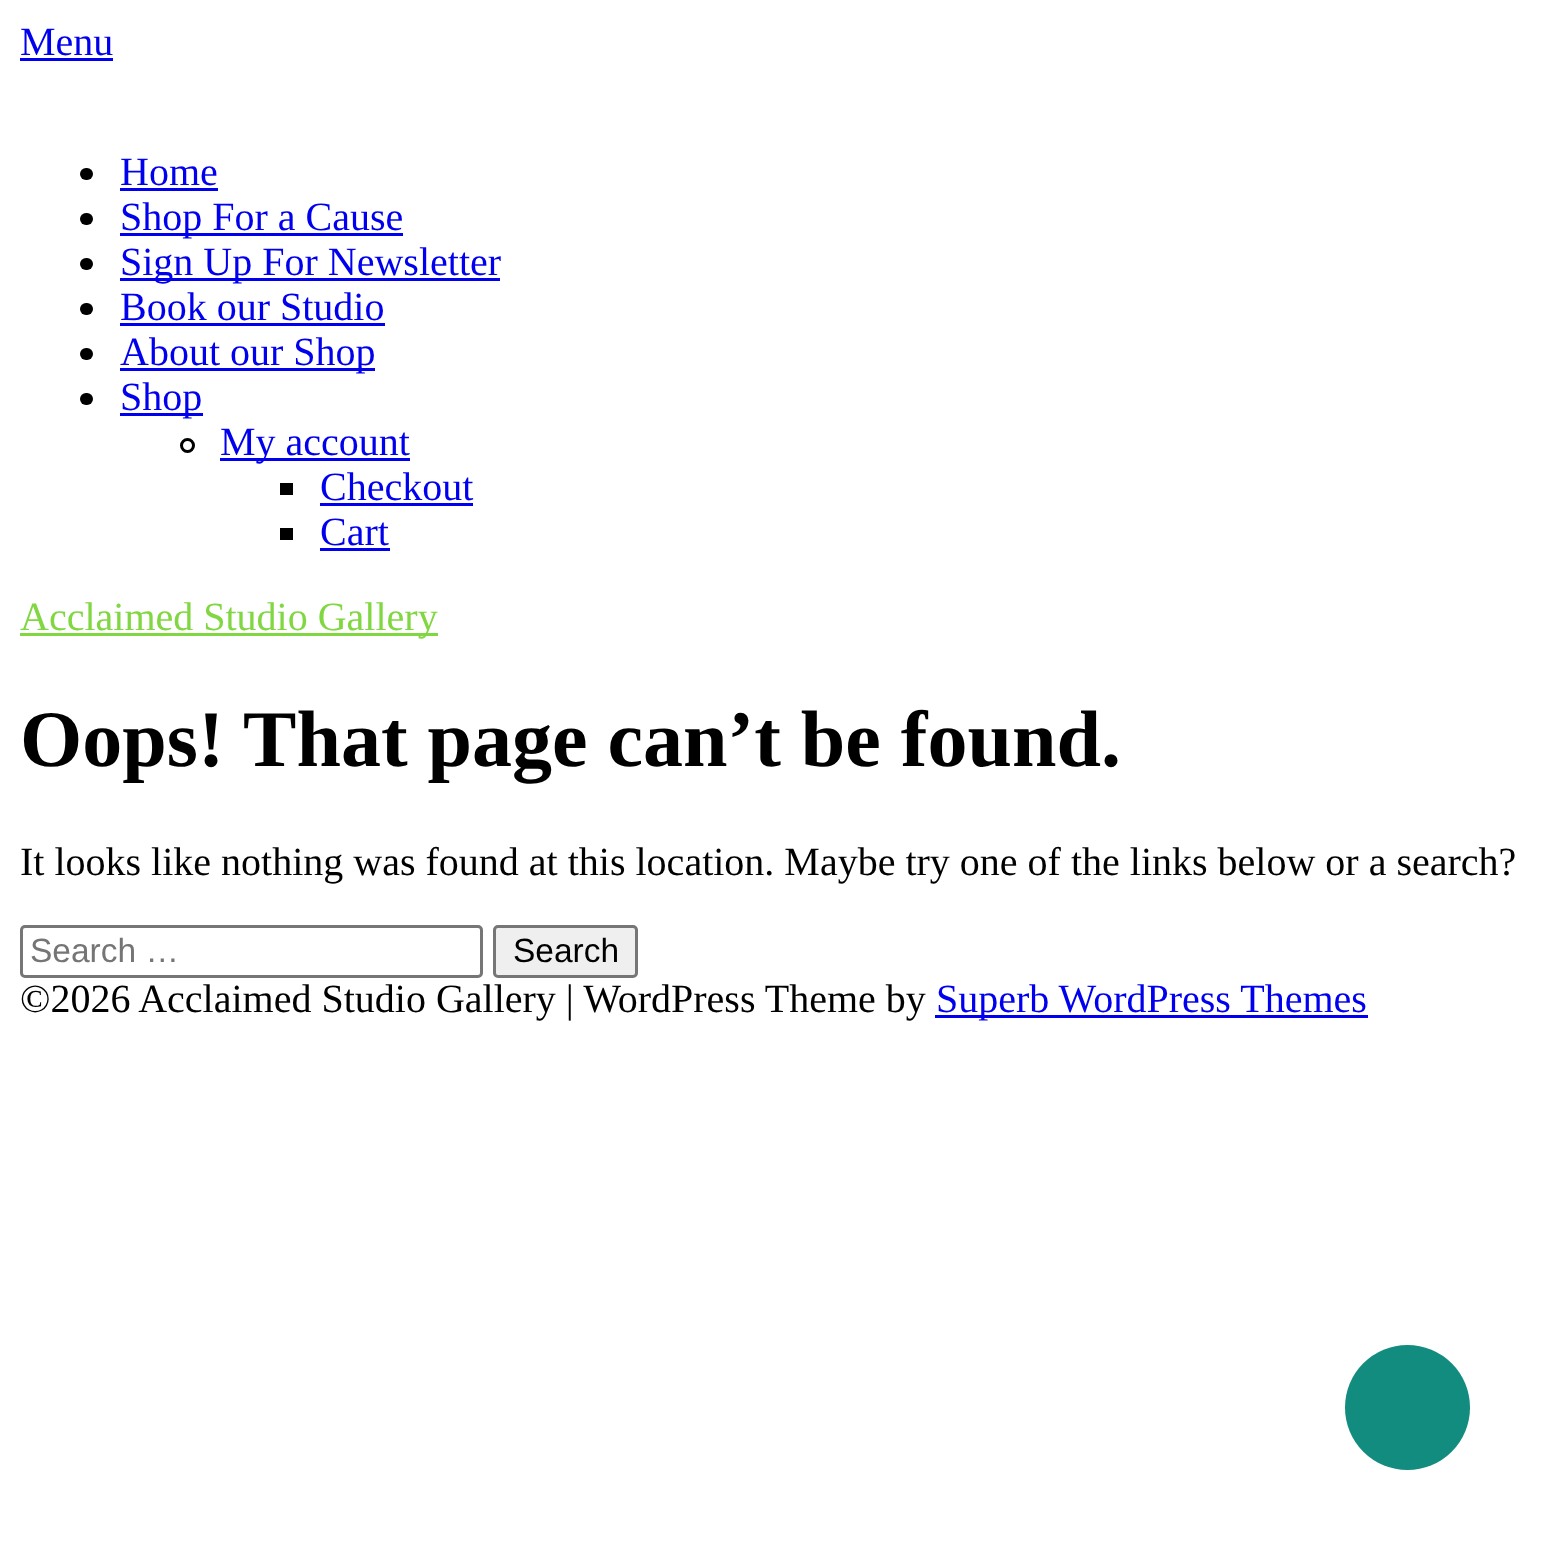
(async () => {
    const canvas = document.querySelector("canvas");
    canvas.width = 1543;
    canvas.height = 1543;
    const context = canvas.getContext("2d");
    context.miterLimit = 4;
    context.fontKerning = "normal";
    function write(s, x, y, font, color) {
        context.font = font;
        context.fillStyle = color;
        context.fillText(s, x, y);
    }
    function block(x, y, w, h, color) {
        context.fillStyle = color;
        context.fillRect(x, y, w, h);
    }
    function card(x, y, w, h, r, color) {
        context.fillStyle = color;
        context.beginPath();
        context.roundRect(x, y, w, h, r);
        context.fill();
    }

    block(0, 0, 1543, 1543, "rgb(255, 255, 255)");
    write("Menu", 20, 55, "40px Liberation Serif", "rgb(0, 0, 238)");
    block(20, 58, 93, 3, "rgb(0, 0, 238)");
    card(80, 168, 13, 12, 6, "rgb(0, 0, 0)");
    write("Home", 120, 185, "40px Liberation Serif", "rgb(0, 0, 238)");
    block(120, 188, 98, 3, "rgb(0, 0, 238)");
    card(80, 213, 13, 12, 6, "rgb(0, 0, 0)");
    block(120, 233, 283, 3, "rgb(0, 0, 238)");
    write("Shop For a Cause", 120, 230, "40px Liberation Serif", "rgb(0, 0, 238)");
    card(80, 258, 13, 12, 6, "rgb(0, 0, 0)");
    block(120, 278, 380, 3, "rgb(0, 0, 238)");
    write("Sign Up For Newsletter", 120, 275, "40px Liberation Serif", "rgb(0, 0, 238)");
    card(80, 303, 13, 12, 6, "rgb(0, 0, 0)");
    write("Book our Studio", 120, 320, "40px Liberation Serif", "rgb(0, 0, 238)");
    block(120, 323, 265, 3, "rgb(0, 0, 238)");
    card(80, 348, 13, 12, 6, "rgb(0, 0, 0)");
    block(120, 368, 255, 3, "rgb(0, 0, 238)");
    write("About our Shop", 120, 365, "40px Liberation Serif", "rgb(0, 0, 238)");
    card(80, 393, 13, 12, 6, "rgb(0, 0, 0)");
    block(120, 413, 83, 3, "rgb(0, 0, 238)");
    write("Shop", 120, 410, "40px Liberation Serif", "rgb(0, 0, 238)");
    context.beginPath();
    context.arc(187.5, 445.5, 6, 0, Math.PI * 2);
    context.strokeStyle = "rgb(0, 0, 0)";
    context.lineWidth = 3;
    context.stroke();
    block(220, 458, 190, 3, "rgb(0, 0, 238)");
    write("My account", 220, 455, "40px Liberation Serif", "rgb(0, 0, 238)");
    block(280, 483, 13, 12, "rgb(0, 0, 0)");
    write("Checkout", 320, 500, "40px Liberation Serif", "rgb(0, 0, 238)");
    block(320, 503, 153, 3, "rgb(0, 0, 238)");
    block(280, 528, 13, 12, "rgb(0, 0, 0)");
    write("Cart", 320, 545, "40px Liberation Serif", "rgb(0, 0, 238)");
    block(320, 548, 70, 3, "rgb(0, 0, 238)");
    block(20, 633, 418, 3, "rgb(129, 215, 66)");
    write("Acclaimed Studio Gallery", 20, 630, "40px Liberation Serif", "rgb(129, 215, 66)");
    write("Oops! That page can’t be found.", 20, 766, "bold 80px Liberation Serif", "rgb(0, 0, 0)");
    write("It looks like nothing was found at this location. Maybe try one of the links below or a search?", 20, 875, "40px Liberation Serif", "rgb(0, 0, 0)");
    context.beginPath();
    context.roundRect(21.5, 926.5, 460, 50, 3.5);
    context.strokeStyle = "rgb(118, 118, 118)";
    context.stroke();
    write("Search …", 30, 962, "33.5px Liberation Sans", "rgb(117, 117, 117)");
    context.fillStyle = "rgb(239, 239, 239)";
    context.beginPath();
    context.roundRect(494.5, 926.5, 142, 50, 3.5);
    context.fill();
    context.stroke();
    write("Search", 513, 962, "33.5px Liberation Sans", "rgb(0, 0, 0)");
    write("©2026 Acclaimed Studio Gallery | WordPress Theme by", 20, 1012, "40px Liberation Serif", "rgb(0, 0, 0)");
    block(935, 1015, 433, 3, "rgb(0, 0, 238)");
    write("Superb WordPress Themes", 936, 1012, "40px Liberation Serif", "rgb(0, 0, 238)");
    context.fillStyle = "rgb(17, 140, 126)";
    context.beginPath();
    context.arc(1407.5, 1407.5, 62.5, 0, Math.PI * 2);
    context.fill();
})();
